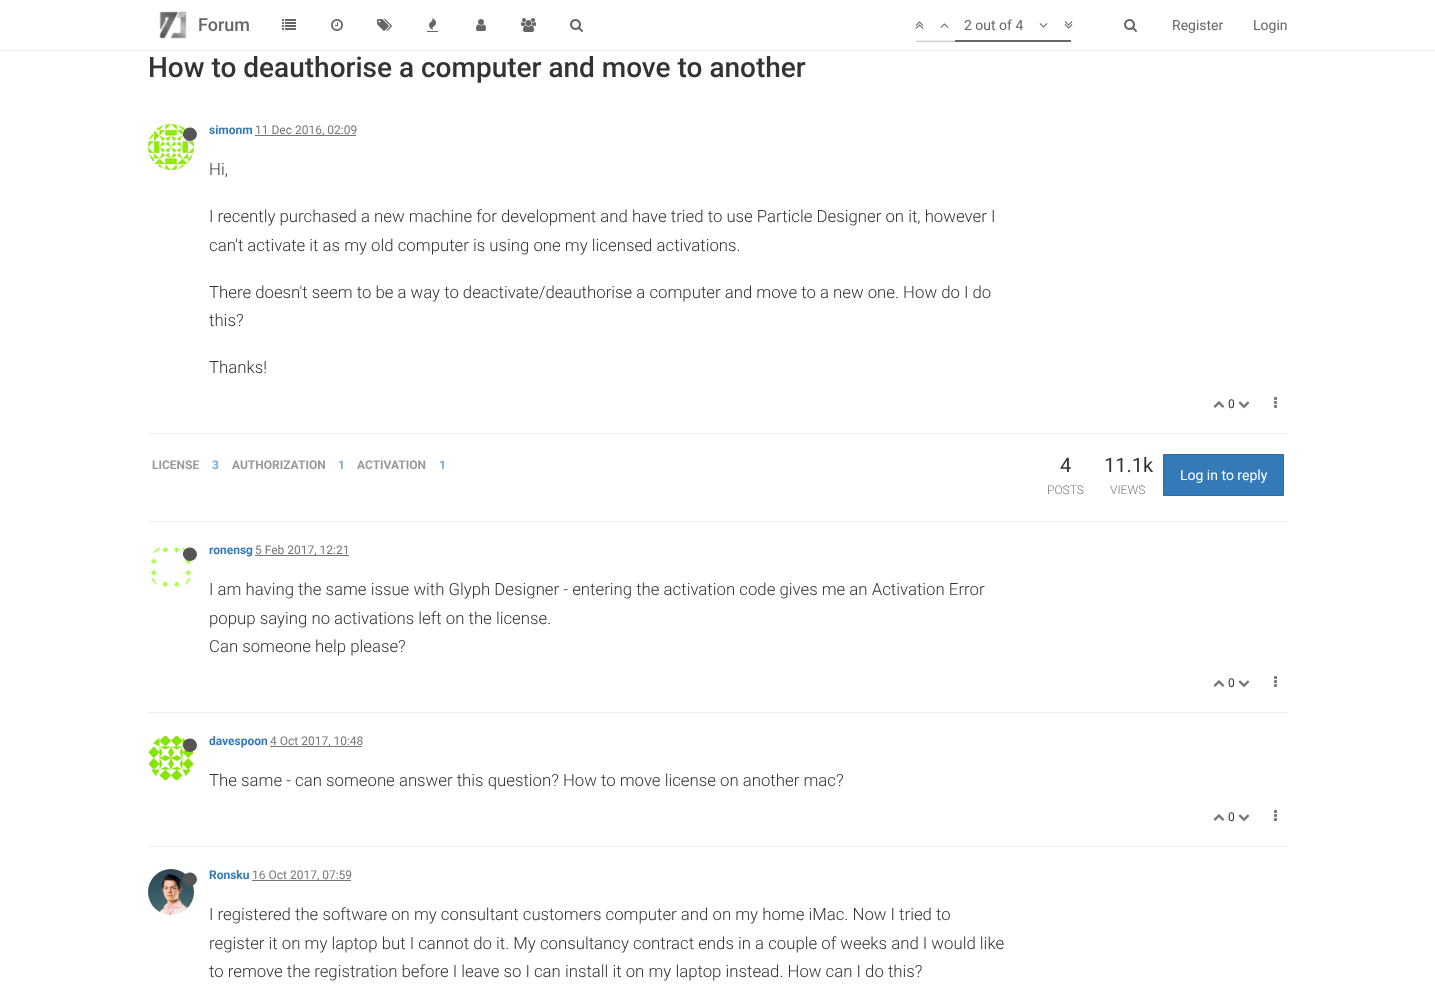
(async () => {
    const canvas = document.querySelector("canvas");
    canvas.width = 1435;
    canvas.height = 984;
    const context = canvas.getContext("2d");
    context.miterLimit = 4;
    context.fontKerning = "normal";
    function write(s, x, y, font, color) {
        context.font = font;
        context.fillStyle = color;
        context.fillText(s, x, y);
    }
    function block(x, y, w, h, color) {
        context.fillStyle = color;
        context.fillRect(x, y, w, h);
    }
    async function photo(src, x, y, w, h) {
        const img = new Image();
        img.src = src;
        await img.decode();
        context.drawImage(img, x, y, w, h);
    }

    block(0, 0, 1435, 984, "rgb(255, 255, 255)");
    block(0, 50, 1435, 1, "rgb(238, 238, 238)");
    await photo("media/1.png", 159, 11, 28, 28);
    write("Forum", 198, 31, "500 18px Roboto", "rgb(102, 102, 102)");
    await photo("media/2.png", 282, 19, 14, 11);
    await photo("media/3.png", 331, 19, 12, 12);
    await photo("media/4.png", 377, 19, 15, 12);
    await photo("media/5.png", 427, 18, 11, 14);
    await photo("media/6.png", 476, 19, 10, 12);
    await photo("media/7.png", 521, 18, 15, 14);
    await photo("media/8.png", 570, 19, 13, 13);
    await photo("media/9.png", 915, 21, 9, 8);
    await photo("media/10.png", 940, 23, 9, 5);
    write("2 out of 4", 964, 30, "14px Roboto", "rgb(102, 102, 102)");
    await photo("media/11.png", 1039, 23, 9, 5);
    await photo("media/12.png", 1064, 21, 9, 8);
    block(955, 40, 116, 2, "rgb(102, 102, 102)");
    block(916, 40, 39, 1, "rgb(238, 238, 238)");
    block(916, 41, 39, 1, "rgb(202, 202, 202)");
    await photo("media/8.png", 1124, 19, 13, 13);
    write("Register", 1172, 30, "14px Roboto", "rgb(102, 102, 102)");
    write("Login", 1253, 30, "14px Roboto", "rgb(102, 102, 102)");
    write("How to deauthorise a computer and move to another", 148, 77, "500 28px Roboto", "rgb(51, 51, 51)");
    await photo("media/13.png", 148, 124, 46, 46);
    context.fillStyle = "rgb(85, 85, 85)";
    context.beginPath();
    context.moveTo(196, 131);
    context.bezierCurveTo(200.5, 138.5, 188.5, 145.5, 184, 137.5);
    context.bezierCurveTo(179.5, 130, 191, 123, 196, 131);
    context.closePath();
    context.fill();
    write("simonm", 209, 134, "bold 12px Roboto", "rgb(51, 122, 183)");
    block(255, 135, 101, 1, "rgb(119, 119, 119)");
    write("11 Dec 2016, 02:09", 255, 134, "12px Roboto", "rgb(119, 119, 119)");
    write("Hi,", 209, 175, "300 16.8px Roboto", "rgb(51, 51, 51)");
    write("I recently purchased a new machine for development and have tried to use Particle Designer on it, however I", 209, 222, "300 16.8px Roboto", "rgb(51, 51, 51)");
    write("can't activate it as my old computer is using one my licensed activations.", 209, 251, "300 16.8px Roboto", "rgb(51, 51, 51)");
    write("There doesn't seem to be a way to deactivate/deauthorise a computer and move to a new one. How do I do", 209, 298, "300 16.8px Roboto", "rgb(51, 51, 51)");
    write("this?", 209, 326, "300 16.8px Roboto", "rgb(51, 51, 51)");
    write("Thanks!", 209, 373, "300 16.8px Roboto", "rgb(51, 51, 51)");
    await photo("media/14.png", 1213, 401, 12, 7);
    write("0", 1228, 408, "12px Roboto", "rgb(51, 51, 51)");
    await photo("media/15.png", 1238, 401, 12, 8);
    await photo("media/16.png", 1274, 397, 3, 11);
    block(148, 433, 1140, 1, "rgb(238, 238, 238)");
    write("LICENSE", 152, 469, "bold 12px Roboto", "rgb(153, 153, 153)");
    write("3", 212, 469, "bold 12px Roboto", "rgb(120, 172, 217)");
    write("AUTHORIZATION", 232, 469, "bold 12px Roboto", "rgb(153, 153, 153)");
    write("1", 338, 469, "bold 12px Roboto", "rgb(120, 172, 217)");
    write("ACTIVATION", 357, 469, "bold 12px Roboto", "rgb(153, 153, 153)");
    write("1", 439, 469, "bold 12px Roboto", "rgb(120, 172, 217)");
    write("4", 1060, 472, "20px Roboto", "rgb(51, 51, 51)");
    write("POSTS", 1047, 494, "300 12px Roboto", "rgb(119, 119, 119)");
    write("11.1k", 1104, 472, "20px Roboto", "rgb(51, 51, 51)");
    write("VIEWS", 1110, 494, "300 12px Roboto", "rgb(119, 119, 119)");
    context.fillStyle = "rgb(51, 122, 183)";
    context.beginPath();
    context.rect(1163.5, 454.5, 120, 41);
    context.fill();
    context.strokeStyle = "rgb(46, 109, 164)";
    context.stroke();
    write("Log in to reply", 1180, 480, "14px Roboto", "rgb(255, 255, 255)");
    block(148, 521, 1140, 1, "rgb(238, 238, 238)");
    await photo("media/17.png", 151, 547, 40, 40);
    context.fillStyle = "rgb(85, 85, 85)";
    context.beginPath();
    context.moveTo(196, 551);
    context.bezierCurveTo(200.5, 558.5, 188.5, 565.5, 184, 557.5);
    context.bezierCurveTo(179.5, 550, 191, 543, 196, 551);
    context.closePath();
    context.fill();
    write("ronensg", 209, 554, "bold 12px Roboto", "rgb(51, 122, 183)");
    block(255, 555, 94, 1, "rgb(119, 119, 119)");
    write("5 Feb 2017, 12:21", 255, 554, "12px Roboto", "rgb(119, 119, 119)");
    write("I am having the same issue with Glyph Designer - entering the activation code gives me an Activation Error", 209, 595, "300 16.8px Roboto", "rgb(51, 51, 51)");
    write("popup saying no activations left on the license.", 209, 624, "300 16.8px Roboto", "rgb(51, 51, 51)");
    write("Can someone help please?", 209, 652, "300 16.8px Roboto", "rgb(51, 51, 51)");
    await photo("media/14.png", 1213, 680, 12, 7);
    write("0", 1228, 687, "12px Roboto", "rgb(51, 51, 51)");
    await photo("media/15.png", 1238, 680, 12, 8);
    await photo("media/16.png", 1274, 676, 3, 11);
    block(148, 712, 1140, 1, "rgb(238, 238, 238)");
    await photo("media/18.png", 148, 735, 46, 46);
    context.fillStyle = "rgb(85, 85, 85)";
    context.beginPath();
    context.moveTo(196, 742);
    context.bezierCurveTo(200.5, 749.5, 188.5, 756.5, 184, 748.5);
    context.bezierCurveTo(179.5, 741, 191, 734, 196, 742);
    context.closePath();
    context.fill();
    write("davespoon", 209, 745, "bold 12px Roboto", "rgb(51, 122, 183)");
    block(270, 746, 92, 1, "rgb(119, 119, 119)");
    write("4 Oct 2017, 10:48", 270, 745, "12px Roboto", "rgb(119, 119, 119)");
    write("The same - can someone answer this question? How to move license on another mac?", 209, 786, "300 16.8px Roboto", "rgb(51, 51, 51)");
    await photo("media/14.png", 1213, 814, 12, 7);
    write("0", 1228, 821, "12px Roboto", "rgb(51, 51, 51)");
    await photo("media/15.png", 1238, 814, 12, 8);
    await photo("media/16.png", 1274, 810, 3, 11);
    block(148, 846, 1140, 1, "rgb(238, 238, 238)");
    await photo("media/19.png", 148, 869, 46, 46);
    context.fillStyle = "rgb(85, 85, 85)";
    context.beginPath();
    context.moveTo(196, 876);
    context.bezierCurveTo(200.5, 883.5, 188.5, 890.5, 184, 882.5);
    context.bezierCurveTo(179.5, 875, 191, 868, 196, 876);
    context.closePath();
    context.fill();
    write("Ronsku", 209, 879, "bold 12px Roboto", "rgb(51, 122, 183)");
    block(252, 880, 99, 1, "rgb(119, 119, 119)");
    write("16 Oct 2017, 07:59", 252, 879, "12px Roboto", "rgb(119, 119, 119)");
    write("I registered the software on my consultant customers computer and on my home iMac. Now I tried to", 209, 920, "300 16.8px Roboto", "rgb(51, 51, 51)");
    write("register it on my laptop but I cannot do it. My consultancy contract ends in a couple of weeks and I would like", 209, 949, "300 16.8px Roboto", "rgb(51, 51, 51)");
    write("to remove the registration before I leave so I can install it on my laptop instead. How can I do this?", 209, 977, "300 16.8px Roboto", "rgb(51, 51, 51)");
})();
